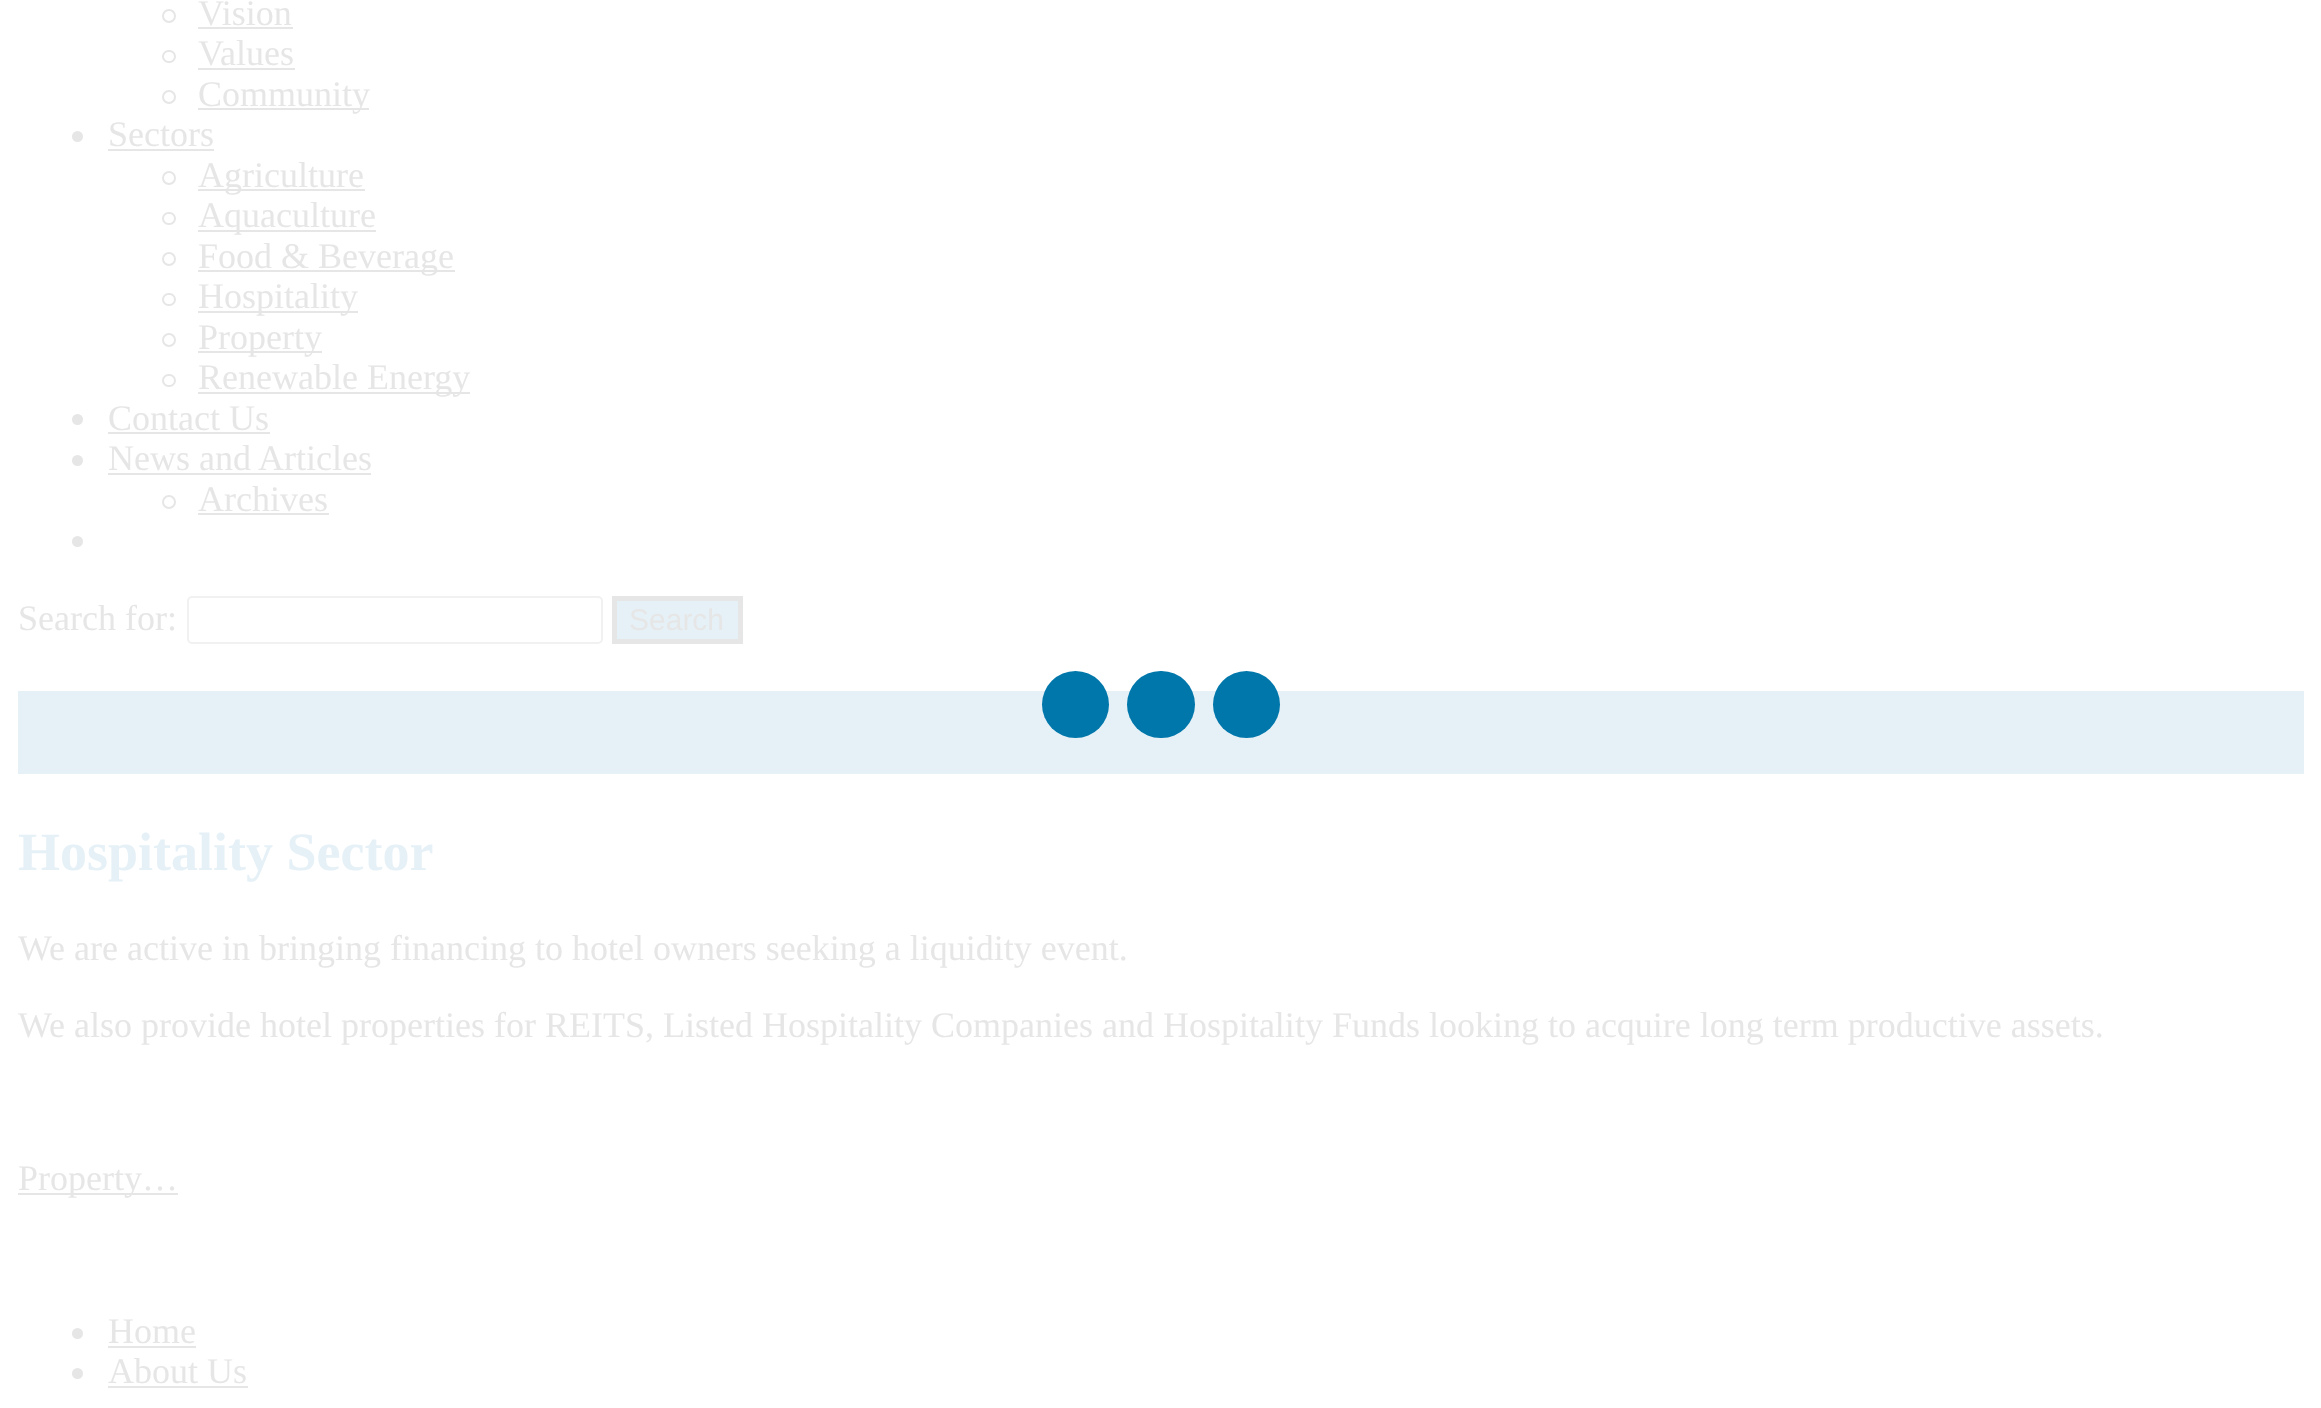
(async () => {
    const canvas = document.querySelector("canvas");
    canvas.width = 2321;
    canvas.height = 1408;
    const context = canvas.getContext("2d");
    context.miterLimit = 4;
    context.fontKerning = "normal";
    function write(s, x, y, font, color) {
        context.font = font;
        context.fillStyle = color;
        context.fillText(s, x, y);
    }
    function block(x, y, w, h, color) {
        context.fillStyle = color;
        context.fillRect(x, y, w, h);
    }
    function card(x, y, w, h, r, color) {
        context.fillStyle = color;
        context.beginPath();
        context.roundRect(x, y, w, h, r);
        context.fill();
    }

    block(0, 0, 2321, 1408, "rgb(255, 255, 255)");
    context.beginPath();
    context.arc(169, 16, 6, 0, Math.PI * 2);
    context.strokeStyle = "rgb(230, 230, 230)";
    context.lineWidth = 2;
    context.stroke();
    write("Vision", 198, 25, "36px Liberation Serif", "rgb(230, 230, 230)");
    block(198, 27, 95, 2, "rgb(230, 230, 230)");
    context.beginPath();
    context.roundRect(163, 51, 12, 11, 5.5);
    context.stroke();
    write("Values", 198, 65, "36px Liberation Serif", "rgb(230, 230, 230)");
    block(198, 68, 97, 2, "rgb(230, 230, 230)");
    context.beginPath();
    context.arc(169, 97, 6, 0, Math.PI * 2);
    context.stroke();
    block(198, 108, 171, 2, "rgb(230, 230, 230)");
    write("Community", 198, 106, "36px Liberation Serif", "rgb(230, 230, 230)");
    context.beginPath();
    context.arc(77.5, 136.5, 5.5, 0, Math.PI * 2);
    context.fill();
    write("Sectors", 108, 146, "36px Liberation Serif", "rgb(230, 230, 230)");
    block(108, 149, 106, 2, "rgb(230, 230, 230)");
    context.beginPath();
    context.arc(169, 178, 6, 0, Math.PI * 2);
    context.stroke();
    block(198, 189, 167, 2, "rgb(230, 230, 230)");
    write("Agriculture", 198, 187, "36px Liberation Serif", "rgb(230, 230, 230)");
    context.beginPath();
    context.roundRect(163, 213, 12, 11, 5.5);
    context.stroke();
    block(198, 230, 178, 2, "rgb(230, 230, 230)");
    write("Aquaculture", 198, 227, "36px Liberation Serif", "rgb(230, 230, 230)");
    context.beginPath();
    context.arc(169, 259, 6, 0, Math.PI * 2);
    context.stroke();
    block(198, 270, 257, 2, "rgb(230, 230, 230)");
    write("Food & Beverage", 198, 268, "36px Liberation Serif", "rgb(230, 230, 230)");
    context.beginPath();
    context.roundRect(163, 294, 12, 11, 5.5);
    context.stroke();
    block(198, 311, 160, 2, "rgb(230, 230, 230)");
    write("Hospitality", 198, 308, "36px Liberation Serif", "rgb(230, 230, 230)");
    context.beginPath();
    context.arc(169, 340, 6, 0, Math.PI * 2);
    context.stroke();
    block(198, 351, 124, 2, "rgb(230, 230, 230)");
    write("Property", 198, 349, "36px Liberation Serif", "rgb(230, 230, 230)");
    context.beginPath();
    context.roundRect(163, 375, 12, 11, 5.5);
    context.stroke();
    block(198, 392, 272, 2, "rgb(230, 230, 230)");
    write("Renewable Energy", 198, 389, "36px Liberation Serif", "rgb(230, 230, 230)");
    context.beginPath();
    context.arc(77.5, 419.5, 5.5, 0, Math.PI * 2);
    context.fill();
    write("Contact Us", 108, 430, "36px Liberation Serif", "rgb(230, 230, 230)");
    block(108, 432, 162, 2, "rgb(230, 230, 230)");
    context.beginPath();
    context.arc(77.5, 460.5, 5.5, 0, Math.PI * 2);
    context.fill();
    write("News and Articles", 108, 470, "36px Liberation Serif", "rgb(230, 230, 230)");
    block(108, 473, 263, 2, "rgb(230, 230, 230)");
    context.beginPath();
    context.arc(169, 502, 6, 0, Math.PI * 2);
    context.stroke();
    write("Archives", 198, 511, "36px Liberation Serif", "rgb(230, 230, 230)");
    block(198, 513, 131, 2, "rgb(230, 230, 230)");
    context.beginPath();
    context.arc(77.5, 541.5, 5.5, 0, Math.PI * 2);
    context.fill();
    write("Search for:", 18, 630, "36px Liberation Serif", "rgb(230, 230, 230)");
    context.beginPath();
    context.roundRect(188, 597, 414, 46, 4);
    context.strokeStyle = "rgb(241, 241, 241)";
    context.stroke();
    context.fillStyle = "rgb(230, 241, 247)";
    context.beginPath();
    context.rect(614.5, 598.5, 126, 43);
    context.fill();
    context.strokeStyle = "rgb(230, 230, 230)";
    context.lineWidth = 5;
    context.stroke();
    write("Search", 629, 630, "30px Liberation Sans", "rgb(230, 230, 230)");
    block(18, 691, 2286, 83, "rgb(230, 241, 247)");
    context.fillStyle = "rgb(0, 119, 171)";
    context.beginPath();
    context.arc(1075.5, 704.5, 33.5, 0, Math.PI * 2);
    context.fill();
    card(1127, 671, 68, 67, 33.5, "rgb(0, 119, 171)");
    context.beginPath();
    context.arc(1246.5, 704.5, 33.5, 0, Math.PI * 2);
    context.fill();
    write("Hospitality Sector", 18, 870, "bold 54px Liberation Serif", "rgb(230, 241, 247)");
    write("We are active in bringing financing to hotel owners seeking a liquidity event.", 18, 960, "36px Liberation Serif", "rgb(230, 230, 230)");
    write("We also provide hotel properties for REITS, Listed Hospitality Companies and Hospitality Funds looking to acquire long term productive assets.", 18, 1037, "36px Liberation Serif", "rgb(230, 230, 230)");
    block(18, 1193, 160, 2, "rgb(230, 230, 230)");
    write("Property…", 18, 1190, "36px Liberation Serif", "rgb(230, 230, 230)");
    context.beginPath();
    context.arc(77.5, 1333.5, 5.5, 0, Math.PI * 2);
    context.fill();
    write("Home", 108, 1343, "36px Liberation Serif", "rgb(230, 230, 230)");
    block(108, 1346, 88, 2, "rgb(230, 230, 230)");
    context.beginPath();
    context.arc(77.5, 1373.5, 5.5, 0, Math.PI * 2);
    context.fill();
    write("About Us", 108, 1383, "36px Liberation Serif", "rgb(230, 230, 230)");
    block(108, 1386, 140, 2, "rgb(230, 230, 230)");
})();
